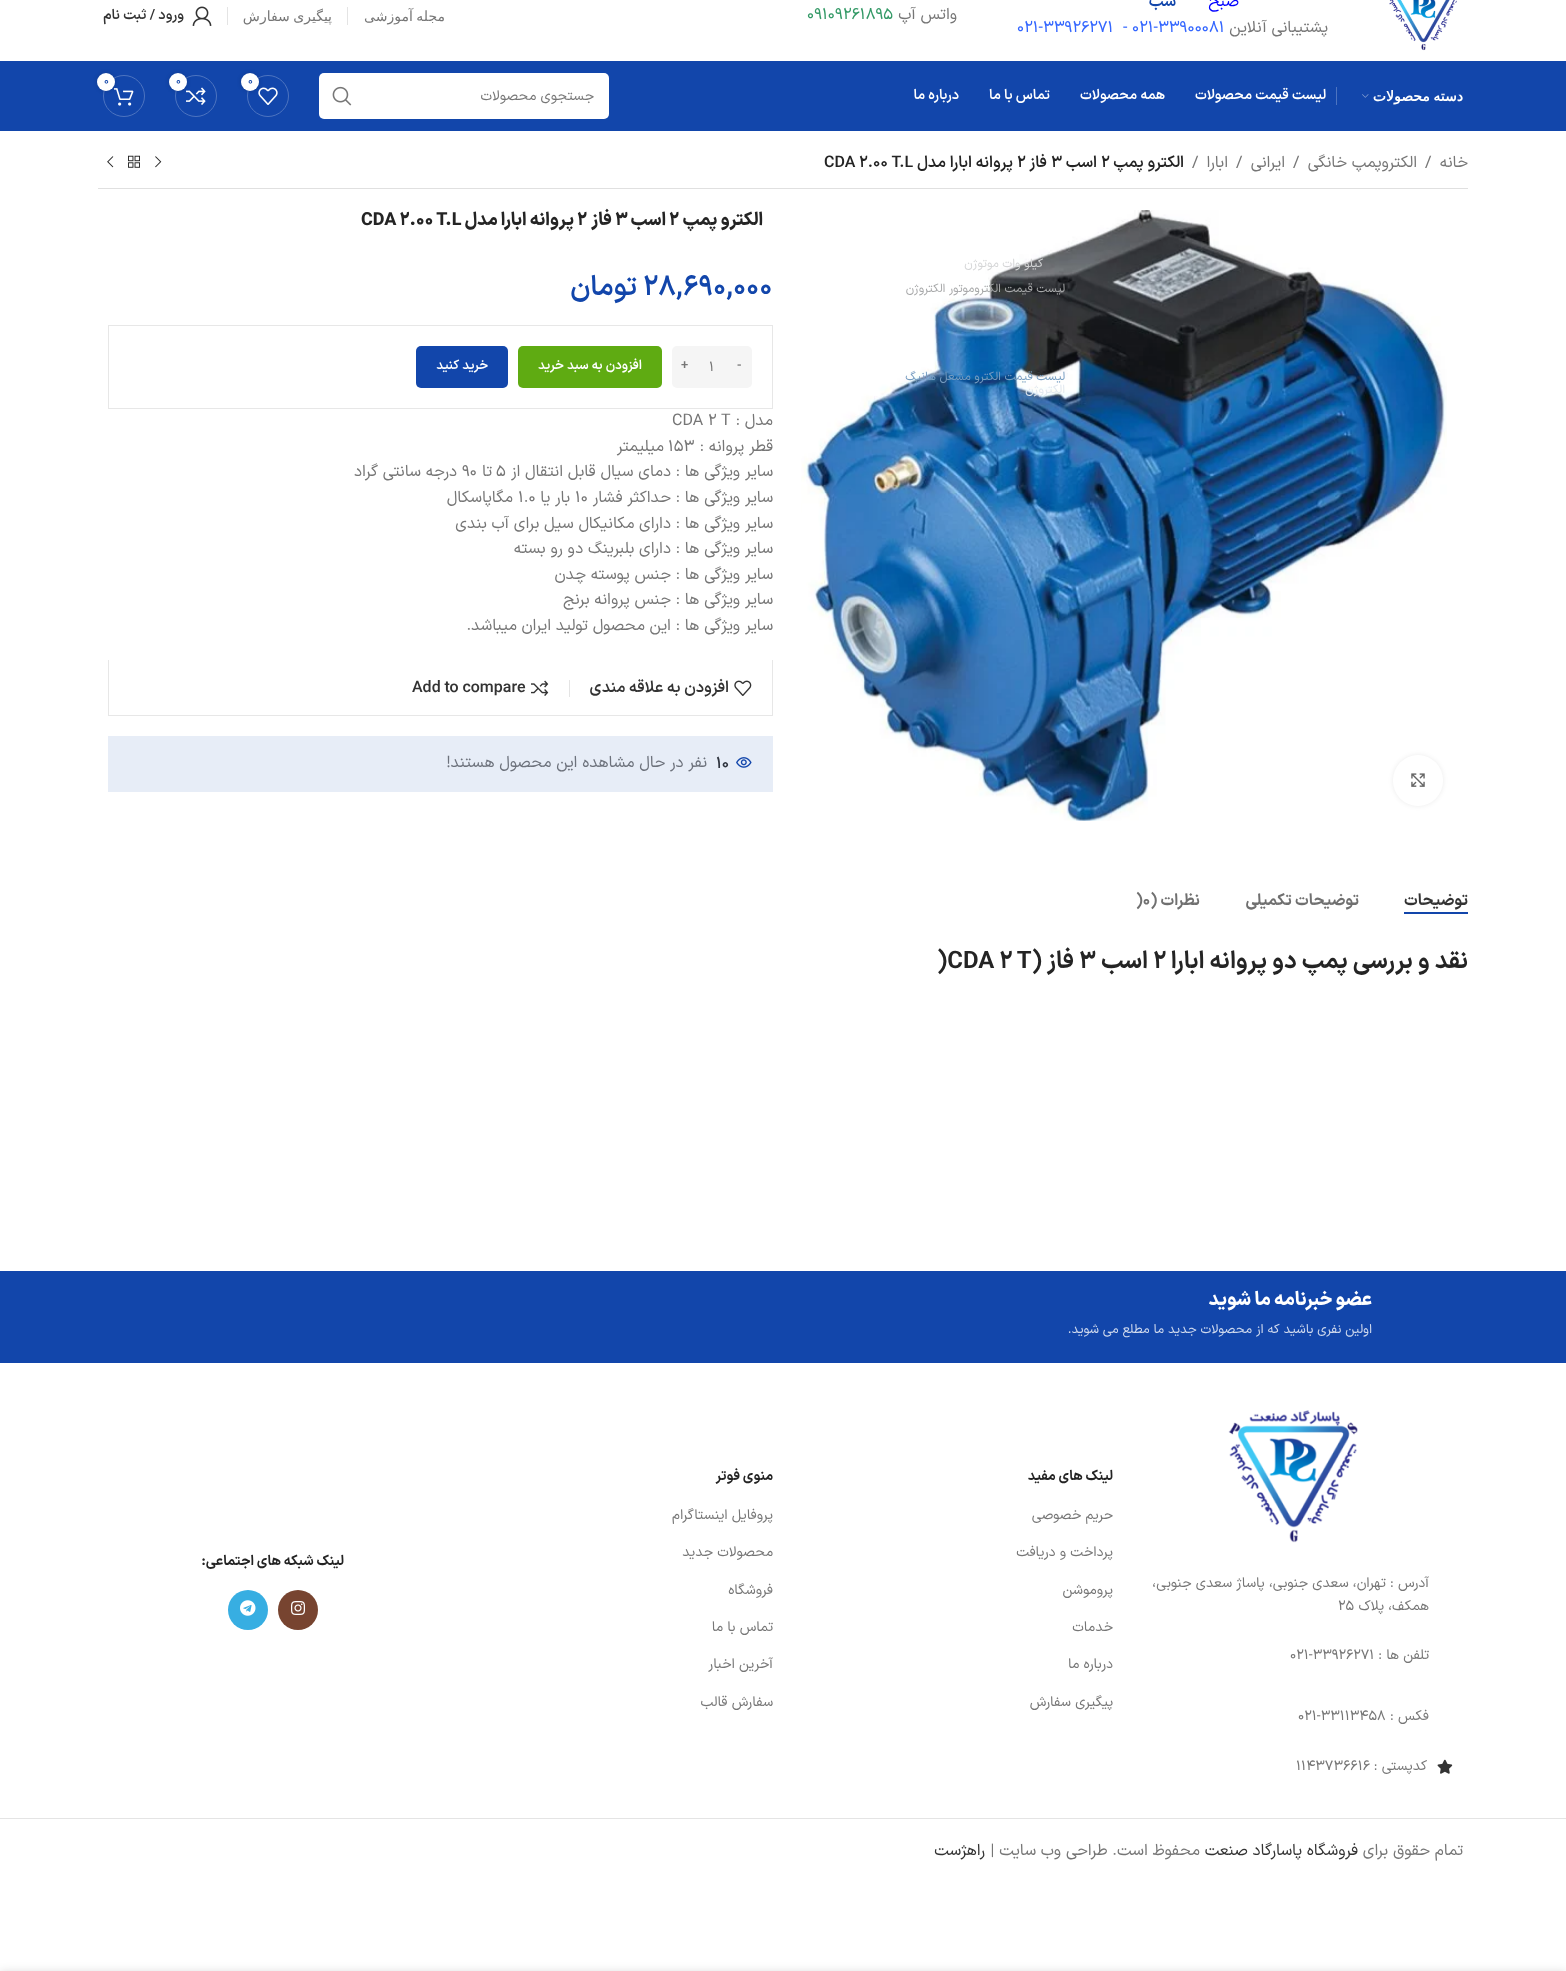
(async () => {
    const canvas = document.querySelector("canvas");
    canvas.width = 1566;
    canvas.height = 1971;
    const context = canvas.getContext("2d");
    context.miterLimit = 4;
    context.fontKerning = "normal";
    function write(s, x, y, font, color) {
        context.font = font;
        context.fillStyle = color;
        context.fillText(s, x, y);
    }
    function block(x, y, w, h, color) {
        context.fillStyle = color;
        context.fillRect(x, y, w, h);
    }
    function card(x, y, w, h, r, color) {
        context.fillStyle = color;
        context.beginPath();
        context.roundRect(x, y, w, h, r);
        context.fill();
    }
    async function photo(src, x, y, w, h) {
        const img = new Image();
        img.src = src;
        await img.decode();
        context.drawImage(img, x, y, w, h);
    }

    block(0, 0, 1566, 1971, "rgb(255, 255, 255)");
    block(108, 736, 665, 56, "rgb(231, 237, 247)");
    await photo("media/1.png", 1389, 0, 68, 51);
    context.direction = "rtl";
    write("صبح", 1239, 6, "16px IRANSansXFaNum", "rgb(0, 0, 255)");
    write("شب", 1176, 6, "600 16px IRANSansXFaNum", "rgb(18, 70, 171)");
    write("پشتیبانی آنلاین", 1328, 32, "16px IRANSansXFaNum", "rgb(118, 118, 118)");
    context.direction = "ltr";
    write("021-33900081", 1132, 32, "16px IRANSansXFaNum", "rgb(51, 102, 255)");
    write("-", 1123, 32, "16px IRANSansXFaNum", "rgb(51, 102, 255)");
    write("021-33926271", 1017, 32, "16px IRANSansXFaNum", "rgb(51, 102, 255)");
    context.direction = "rtl";
    write("واتس آپ", 957, 19, "16px IRANSansXFaNum", "rgb(118, 118, 118)");
    context.direction = "ltr";
    write("09109261895", 807, 19, "16px IRANSansXFaNum", "rgb(51, 153, 102)");
    context.wordSpacing = "-1px";
    context.direction = "rtl";
    write("مجله آموزشی", 445, 21, "14px DejaVu Sans", "rgb(118, 118, 118)");
    block(347, 7, 1, 18, "rgb(228, 228, 228)");
    write("پیگیری سفارش", 332, 21, "14px DejaVu Sans", "rgb(118, 118, 118)");
    block(227, 7, 1, 18, "rgb(228, 228, 228)");
    await photo("media/2.png", 192, 6, 20, 20);
    context.wordSpacing = "0px";
    write("ورود / ثبت نام", 184, 19, "600 14px IRANSansXFaNum", "rgb(51, 51, 51)");
    block(0, 61, 1566, 70, "rgb(18, 70, 171)");
    block(1336, 87, 1, 18, "rgb(77, 116, 192)");
    write("لیست قیمت محصولات", 1326, 99, "600 14px IRANSansXFaNum", "rgb(255, 255, 255)");
    write("همه محصولات", 1165, 99, "600 14px IRANSansXFaNum", "rgb(255, 255, 255)");
    write("تماس با ما", 1050, 99, "600 14px IRANSansXFaNum", "rgb(255, 255, 255)");
    write("درباره ما", 959, 99, "600 14px IRANSansXFaNum", "rgb(255, 255, 255)");
    context.wordSpacing = "-1px";
    write("دسته محصولات", 1463, 101, "bold 14px DejaVu Sans", "rgb(255, 255, 255)");
    await photo("media/3.png", 1362, 94, 7, 4);
    await photo("media/11.png", 801, 210, 646, 611);
    context.wordSpacing = "0px";
    write("کیلو وات موتوژن", 1043, 267, "12px IRANSansXFaNum", "rgb(213, 214, 215)");
    write("لیست قیمت الکتروموتور الکتروژن", 1065, 292, "12px IRANSansXFaNum", "rgb(167, 168, 169)");
    write("لیست قیمت الکترو مشعل هانیگ", 1065, 380, "12px IRANSansXFaNum", "rgb(118, 157, 193)");
    write("الکتروژن", 1065, 393, "12px IRANSansXFaNum", "rgb(225, 232, 239)");
    context.beginPath();
    context.arc(268, 96, 20.5, 0, Math.PI * 2);
    context.strokeStyle = "rgb(77, 116, 192)";
    context.stroke();
    await photo("media/4.png", 258, 87, 20, 18);
    context.fillStyle = "rgba(0, 0, 0, 0.17)";
    context.filter = "blur(2px)";
    context.beginPath();
    context.roundRect(241, 73, 18, 18, 9);
    context.fill();
    context.filter = "none";
    context.fillStyle = "rgb(255, 255, 255)";
    context.beginPath();
    context.arc(250, 82, 9, 0, Math.PI * 2);
    context.fill();
    context.direction = "ltr";
    write("0", 248, 84, "11px IRANSansXFaNum", "rgb(18, 70, 171)");
    context.beginPath();
    context.arc(196, 96, 20.5, 0, Math.PI * 2);
    context.stroke();
    await photo("media/5.png", 186, 87, 20, 18);
    context.fillStyle = "rgba(0, 0, 0, 0.17)";
    context.filter = "blur(2px)";
    context.beginPath();
    context.roundRect(169, 73, 18, 18, 9);
    context.fill();
    context.filter = "none";
    context.fillStyle = "rgb(255, 255, 255)";
    context.beginPath();
    context.arc(178, 82, 9, 0, Math.PI * 2);
    context.fill();
    write("0", 176, 84, "11px IRANSansXFaNum", "rgb(18, 70, 171)");
    context.beginPath();
    context.arc(124, 96, 20.5, 0, Math.PI * 2);
    context.stroke();
    await photo("media/6.png", 114, 88, 20, 18);
    context.fillStyle = "rgba(0, 0, 0, 0.17)";
    context.filter = "blur(2px)";
    context.beginPath();
    context.roundRect(97, 73, 18, 18, 9);
    context.fill();
    context.filter = "none";
    context.fillStyle = "rgb(255, 255, 255)";
    context.beginPath();
    context.arc(106, 82, 9, 0, Math.PI * 2);
    context.fill();
    write("0", 104, 84, "11px IRANSansXFaNum", "rgb(18, 70, 171)");
    card(319, 73, 290, 46, 5, "rgb(255, 255, 255)");
    context.direction = "rtl";
    write("جستجوی محصولات", 594, 100, "14px IRANSansXFaNum", "rgb(118, 118, 118)");
    await photo("media/7.png", 332, 86, 20, 20);
    write("خانه", 1468, 167, "16px IRANSansXFaNum", "rgb(118, 118, 118)");
    context.direction = "ltr";
    write("/", 1425, 167, "16px IRANSansXFaNum", "rgb(118, 118, 118)");
    context.direction = "rtl";
    write("الکتروپمپ خانگی", 1417, 167, "16px IRANSansXFaNum", "rgb(118, 118, 118)");
    context.direction = "ltr";
    write("/", 1293, 167, "16px IRANSansXFaNum", "rgb(118, 118, 118)");
    context.direction = "rtl";
    write("ایرانی", 1285, 167, "16px IRANSansXFaNum", "rgb(118, 118, 118)");
    context.direction = "ltr";
    write("/", 1236, 167, "16px IRANSansXFaNum", "rgb(118, 118, 118)");
    context.direction = "rtl";
    write("ابارا", 1228, 167, "16px IRANSansXFaNum", "rgb(118, 118, 118)");
    context.direction = "ltr";
    write("/", 1192, 167, "16px IRANSansXFaNum", "rgb(118, 118, 118)");
    context.direction = "rtl";
    write("الکترو پمپ", 1184, 167, "600 16px IRANSansXFaNum", "rgb(36, 36, 36)");
    context.direction = "ltr";
    write("2", 1101, 167, "600 16px IRANSansXFaNum", "rgb(36, 36, 36)");
    context.direction = "rtl";
    write("اسب", 1097, 167, "600 16px IRANSansXFaNum", "rgb(36, 36, 36)");
    context.direction = "ltr";
    write("3", 1051, 167, "600 16px IRANSansXFaNum", "rgb(36, 36, 36)");
    context.direction = "rtl";
    write("فاز", 1047, 167, "600 16px IRANSansXFaNum", "rgb(36, 36, 36)");
    context.direction = "ltr";
    write("2", 1017, 167, "600 16px IRANSansXFaNum", "rgb(36, 36, 36)");
    context.direction = "rtl";
    write("پروانه ابارا مدل", 1013, 167, "600 16px IRANSansXFaNum", "rgb(36, 36, 36)");
    context.direction = "ltr";
    write("CDA 2.00 T.L", 824, 167, "600 16px IRANSansXFaNum", "rgb(36, 36, 36)");
    await photo("media/8.png", 155, 156, 7, 12);
    await photo("media/9.png", 128, 155, 12, 13);
    await photo("media/10.png", 107, 156, 7, 12);
    block(98, 188, 1370, 1, "rgb(224, 224, 224)");
    context.fillStyle = "rgba(0, 0, 0, 0.08)";
    context.filter = "blur(2.5px)";
    context.beginPath();
    context.roundRect(1393, 755, 50, 51, 25);
    context.fill();
    context.filter = "none";
    card(1393, 755, 50, 51, 25, "rgb(255, 255, 255)");
    await photo("media/12.png", 1411, 773, 14, 14);
    context.direction = "rtl";
    write("الکترو پمپ", 763, 225, "800 18px IRANSansXFaNum", "rgb(36, 36, 36)");
    context.direction = "ltr";
    write("2", 669, 225, "800 18px IRANSansXFaNum", "rgb(36, 36, 36)");
    context.direction = "rtl";
    write("اسب", 666, 225, "800 18px IRANSansXFaNum", "rgb(36, 36, 36)");
    context.direction = "ltr";
    write("3", 615, 225, "800 18px IRANSansXFaNum", "rgb(36, 36, 36)");
    context.direction = "rtl";
    write("فاز", 612, 225, "800 18px IRANSansXFaNum", "rgb(36, 36, 36)");
    context.direction = "ltr";
    write("2", 577, 225, "800 18px IRANSansXFaNum", "rgb(36, 36, 36)");
    context.direction = "rtl";
    write("پروانه ابارا مدل", 574, 225, "800 18px IRANSansXFaNum", "rgb(36, 36, 36)");
    context.direction = "ltr";
    write("CDA 2.00 T.L", 361, 225, "800 18px IRANSansXFaNum", "rgb(36, 36, 36)");
    write("28,690,000", 643, 295, "600 28px IRANSansXFaNum", "rgb(18, 70, 171)");
    context.direction = "rtl";
    write("تومان", 637, 295, "600 28px IRANSansXFaNum", "rgb(18, 70, 171)");
    context.strokeStyle = "rgb(231, 231, 231)";
    context.strokeRect(108.5, 325.5, 664, 83);
    context.fillStyle = "rgb(245, 245, 245)";
    context.beginPath();
    context.roundRect(727, 346, 25, 42, [0, 5, 5, 0]);
    context.fill();
    context.direction = "ltr";
    write("-", 737, 369, "600 13px IRANSansXFaNum", "rgb(118, 118, 118)");
    block(697, 346, 30, 42, "rgb(245, 245, 245)");
    write("1", 709, 371, "14px IRANSansXFaNum", "rgb(118, 118, 118)");
    context.fillStyle = "rgb(245, 245, 245)";
    context.beginPath();
    context.roundRect(672, 346, 25, 42, [5, 0, 0, 5]);
    context.fill();
    write("+", 681, 369, "600 13px IRANSansXFaNum", "rgb(118, 118, 118)");
    card(518, 346, 144, 42, 5, "rgb(95, 171, 18)");
    context.direction = "rtl";
    write("افزودن به سبد خرید", 642, 369, "600 13px IRANSansXFaNum", "rgb(255, 255, 255)");
    card(416, 346, 92, 42, 5, "rgb(18, 70, 171)");
    write("خرید کنید", 488, 369, "600 13px IRANSansXFaNum", "rgb(255, 255, 255)");
    write("مدل :", 773, 425, "16px IRANSansXFaNum", "rgb(118, 118, 118)");
    context.direction = "ltr";
    write("CDA 2 T", 672, 425, "16px IRANSansXFaNum", "rgb(118, 118, 118)");
    context.direction = "rtl";
    write("قطر پروانه :", 773, 451, "16px IRANSansXFaNum", "rgb(118, 118, 118)");
    context.direction = "ltr";
    write("153", 668, 451, "16px IRANSansXFaNum", "rgb(118, 118, 118)");
    context.direction = "rtl";
    write("میلیمتر", 664, 451, "16px IRANSansXFaNum", "rgb(118, 118, 118)");
    write("سایر ویژگی ها : دمای سیال قابل انتقال از", 773, 476, "16px IRANSansXFaNum", "rgb(118, 118, 118)");
    context.direction = "ltr";
    write("5", 496, 476, "16px IRANSansXFaNum", "rgb(118, 118, 118)");
    context.direction = "rtl";
    write("تا", 492, 476, "16px IRANSansXFaNum", "rgb(118, 118, 118)");
    context.direction = "ltr";
    write("90", 462, 476, "16px IRANSansXFaNum", "rgb(118, 118, 118)");
    context.direction = "rtl";
    write("درجه سانتی گراد", 457, 476, "16px IRANSansXFaNum", "rgb(118, 118, 118)");
    write("سایر ویژگی ها : حداکثر فشار", 773, 502, "16px IRANSansXFaNum", "rgb(118, 118, 118)");
    context.direction = "ltr";
    write("10", 575, 502, "16px IRANSansXFaNum", "rgb(118, 118, 118)");
    context.direction = "rtl";
    write("بار یا", 570, 502, "16px IRANSansXFaNum", "rgb(118, 118, 118)");
    context.direction = "ltr";
    write("1.0", 518, 502, "16px IRANSansXFaNum", "rgb(118, 118, 118)");
    context.direction = "rtl";
    write("مگاپاسکال", 513, 502, "16px IRANSansXFaNum", "rgb(118, 118, 118)");
    write("سایر ویژگی ها : دارای مکانیکال سیل برای آب بندی", 773, 528, "16px IRANSansXFaNum", "rgb(118, 118, 118)");
    write("سایر ویژگی ها : دارای بلبرینگ دو رو بسته", 773, 553, "16px IRANSansXFaNum", "rgb(118, 118, 118)");
    write("سایر ویژگی ها : جنس پوسته چدن", 773, 579, "16px IRANSansXFaNum", "rgb(118, 118, 118)");
    write("سایر ویژگی ها : جنس پروانه برنج", 773, 604, "16px IRANSansXFaNum", "rgb(118, 118, 118)");
    write("سایر ویژگی ها : این محصول تولید ایران میباشد.", 773, 630, "16px IRANSansXFaNum", "rgb(118, 118, 118)");
    context.fillStyle = "rgb(231, 231, 231)";
    context.beginPath();
    context.moveTo(773, 660);
    context.lineTo(773, 716);
    context.lineTo(772, 715);
    context.lineTo(772, 660);
    context.closePath();
    context.fill();
    context.fillStyle = "rgba(16, 16, 16, 0.1)";
    context.beginPath();
    context.moveTo(773, 716);
    context.lineTo(108, 716);
    context.lineTo(109, 715);
    context.lineTo(772, 715);
    context.closePath();
    context.fill();
    context.beginPath();
    context.moveTo(108, 716);
    context.lineTo(108, 660);
    context.lineTo(109, 660);
    context.lineTo(109, 715);
    context.closePath();
    context.fill();
    block(569, 680, 1, 17, "rgb(228, 228, 228)");
    await photo("media/13.png", 734, 680, 18, 16);
    write("افزودن به علاقه مندی", 729, 692, "600 16px IRANSansXFaNum", "rgb(51, 51, 51)");
    await photo("media/14.png", 531, 680, 18, 16);
    context.direction = "ltr";
    write("Add to compare", 412, 692, "600 16px IRANSansXFaNum", "rgb(51, 51, 51)");
    await photo("media/15.png", 736, 757, 16, 11);
    write("10", 716, 768, "600 16px IRANSansXFaNum", "rgb(48, 53, 63)");
    context.direction = "rtl";
    write("نفر در حال مشاهده این محصول هستند!", 707, 767, "16px IRANSansXFaNum", "rgb(109, 114, 124)");
    write("توضیحات", 1468, 905, "bold 16px IRANSansXFaNum", "rgb(51, 51, 51)");
    block(1404, 912, 64, 2, "rgb(18, 70, 171)");
    write("توضیحات تکمیلی", 1359, 905, "bold 16px IRANSansXFaNum", "rgb(112, 112, 112)");
    write("نظرات (", 1200, 905, "bold 16px IRANSansXFaNum", "rgb(112, 112, 112)");
    context.direction = "ltr";
    write(")0", 1136, 905, "bold 16px IRANSansXFaNum", "rgb(112, 112, 112)");
    context.direction = "rtl";
    write("نقد و بررسی پمپ دو پروانه ابارا", 1468, 968, "bold 24px IRANSansXFaNum", "rgb(36, 36, 36)");
    context.direction = "ltr";
    write("2", 1153, 968, "bold 24px IRANSansXFaNum", "rgb(36, 36, 36)");
    context.direction = "rtl";
    write("اسب", 1148, 968, "bold 24px IRANSansXFaNum", "rgb(36, 36, 36)");
    context.direction = "ltr";
    write("3", 1079, 968, "bold 24px IRANSansXFaNum", "rgb(36, 36, 36)");
    context.direction = "rtl";
    write("فاز (", 1074, 968, "bold 24px IRANSansXFaNum", "rgb(36, 36, 36)");
    context.direction = "ltr";
    write(")CDA 2 T", 937, 968, "bold 24px IRANSansXFaNum", "rgb(36, 36, 36)");
    block(0, 1271, 1566, 92, "rgb(18, 70, 171)");
    context.direction = "rtl";
    write("عضو خبرنامه ما شوید", 1372, 1305, "800 19px IRANSansXFaNum", "rgb(255, 255, 255)");
    write("اولین نفری باشید که از محصولات جدید ما مطلع می شوید.", 1372, 1333, "13px IRANSansXFaNum", "rgb(208, 218, 238)");
    write("لینک های مفید", 1113, 1480, "bold 14px IRANSansXFaNum", "rgb(36, 36, 36)");
    write("حریم خصوصی", 1113, 1519, "14px IRANSansXFaNum", "rgb(118, 118, 118)");
    write("پرداخت و دریافت", 1113, 1556, "14px IRANSansXFaNum", "rgb(118, 118, 118)");
    write("پروموشن", 1113, 1594, "14px IRANSansXFaNum", "rgb(118, 118, 118)");
    write("خدمات", 1113, 1631, "14px IRANSansXFaNum", "rgb(118, 118, 118)");
    write("درباره ما", 1113, 1668, "14px IRANSansXFaNum", "rgb(118, 118, 118)");
    write("پیگیری سفارش", 1113, 1706, "14px IRANSansXFaNum", "rgb(118, 118, 118)");
    write("منوی فوتر", 773, 1480, "bold 14px IRANSansXFaNum", "rgb(36, 36, 36)");
    write("پروفایل اینستاگرام", 773, 1519, "14px IRANSansXFaNum", "rgb(118, 118, 118)");
    write("محصولات جدید", 773, 1556, "14px IRANSansXFaNum", "rgb(118, 118, 118)");
    write("فروشگاه", 773, 1594, "14px IRANSansXFaNum", "rgb(118, 118, 118)");
    write("تماس با ما", 773, 1631, "14px IRANSansXFaNum", "rgb(118, 118, 118)");
    write("آخرین اخبار", 773, 1668, "14px IRANSansXFaNum", "rgb(118, 118, 118)");
    write("سفارش قالب", 773, 1706, "14px IRANSansXFaNum", "rgb(118, 118, 118)");
    write("لینک شبکه های اجتماعی:", 344, 1565, "bold 14px IRANSansXFaNum", "rgb(36, 36, 36)");
    context.fillStyle = "rgb(119, 68, 48)";
    context.beginPath();
    context.arc(298, 1610, 20, 0, Math.PI * 2);
    context.fill();
    await photo("media/16.png", 291, 1601, 14, 14);
    context.fillStyle = "rgb(55, 174, 226)";
    context.beginPath();
    context.arc(248, 1610, 20, 0, Math.PI * 2);
    context.fill();
    await photo("media/17.png", 240, 1600, 16, 16);
    await photo("media/18.png", 1228, 1410, 130, 133);
    write("آدرس : تهران، سعدی جنوبی، پاساژ سعدی جنوبی،", 1429, 1587, "14px IRANSansXFaNum", "rgb(118, 118, 118)");
    write("همکف، پلاک", 1429, 1610, "14px IRANSansXFaNum", "rgb(118, 118, 118)");
    context.direction = "ltr";
    write("25", 1338, 1610, "14px IRANSansXFaNum", "rgb(118, 118, 118)");
    context.direction = "rtl";
    write("تلفن ها :", 1429, 1659, "14px IRANSansXFaNum", "rgb(118, 118, 118)");
    context.direction = "ltr";
    write("021-33926271", 1290, 1659, "14px IRANSansXFaNum", "rgb(118, 118, 118)");
    context.direction = "rtl";
    write("فکس :", 1429, 1720, "14px IRANSansXFaNum", "rgb(118, 118, 118)");
    context.direction = "ltr";
    write("021-33113458", 1298, 1720, "14px IRANSansXFaNum", "rgb(118, 118, 118)");
    await photo("media/19.png", 1437, 1759, 16, 15);
    context.direction = "rtl";
    write("کدپستی :", 1427, 1770, "14px IRANSansXFaNum", "rgb(118, 118, 118)");
    context.direction = "ltr";
    write("1143736616", 1296, 1770, "14px IRANSansXFaNum", "rgb(118, 118, 118)");
    block(0, 1818, 1566, 1, "rgb(228, 228, 228)");
    context.direction = "rtl";
    write("تمام حقوق برای", 1463, 1855, "16px IRANSansXFaNum", "rgb(118, 118, 118)");
    write("فروشگاه پاسارگاد صنعت", 1358, 1855, "16px IRANSansXFaNum", "rgb(51, 51, 51)");
    write("محفوظ است. طراحی وب سایت |", 1200, 1855, "16px IRANSansXFaNum", "rgb(118, 118, 118)");
    write("راهژست", 985, 1855, "16px IRANSansXFaNum", "rgb(51, 51, 51)");
    context.fillStyle = "rgba(0, 0, 0, 0.12)";
    context.filter = "blur(4.5px)";
    context.beginPath();
    context.rect(0, 1971, 1566, 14);
    context.fill();
    context.filter = "none";
})();
